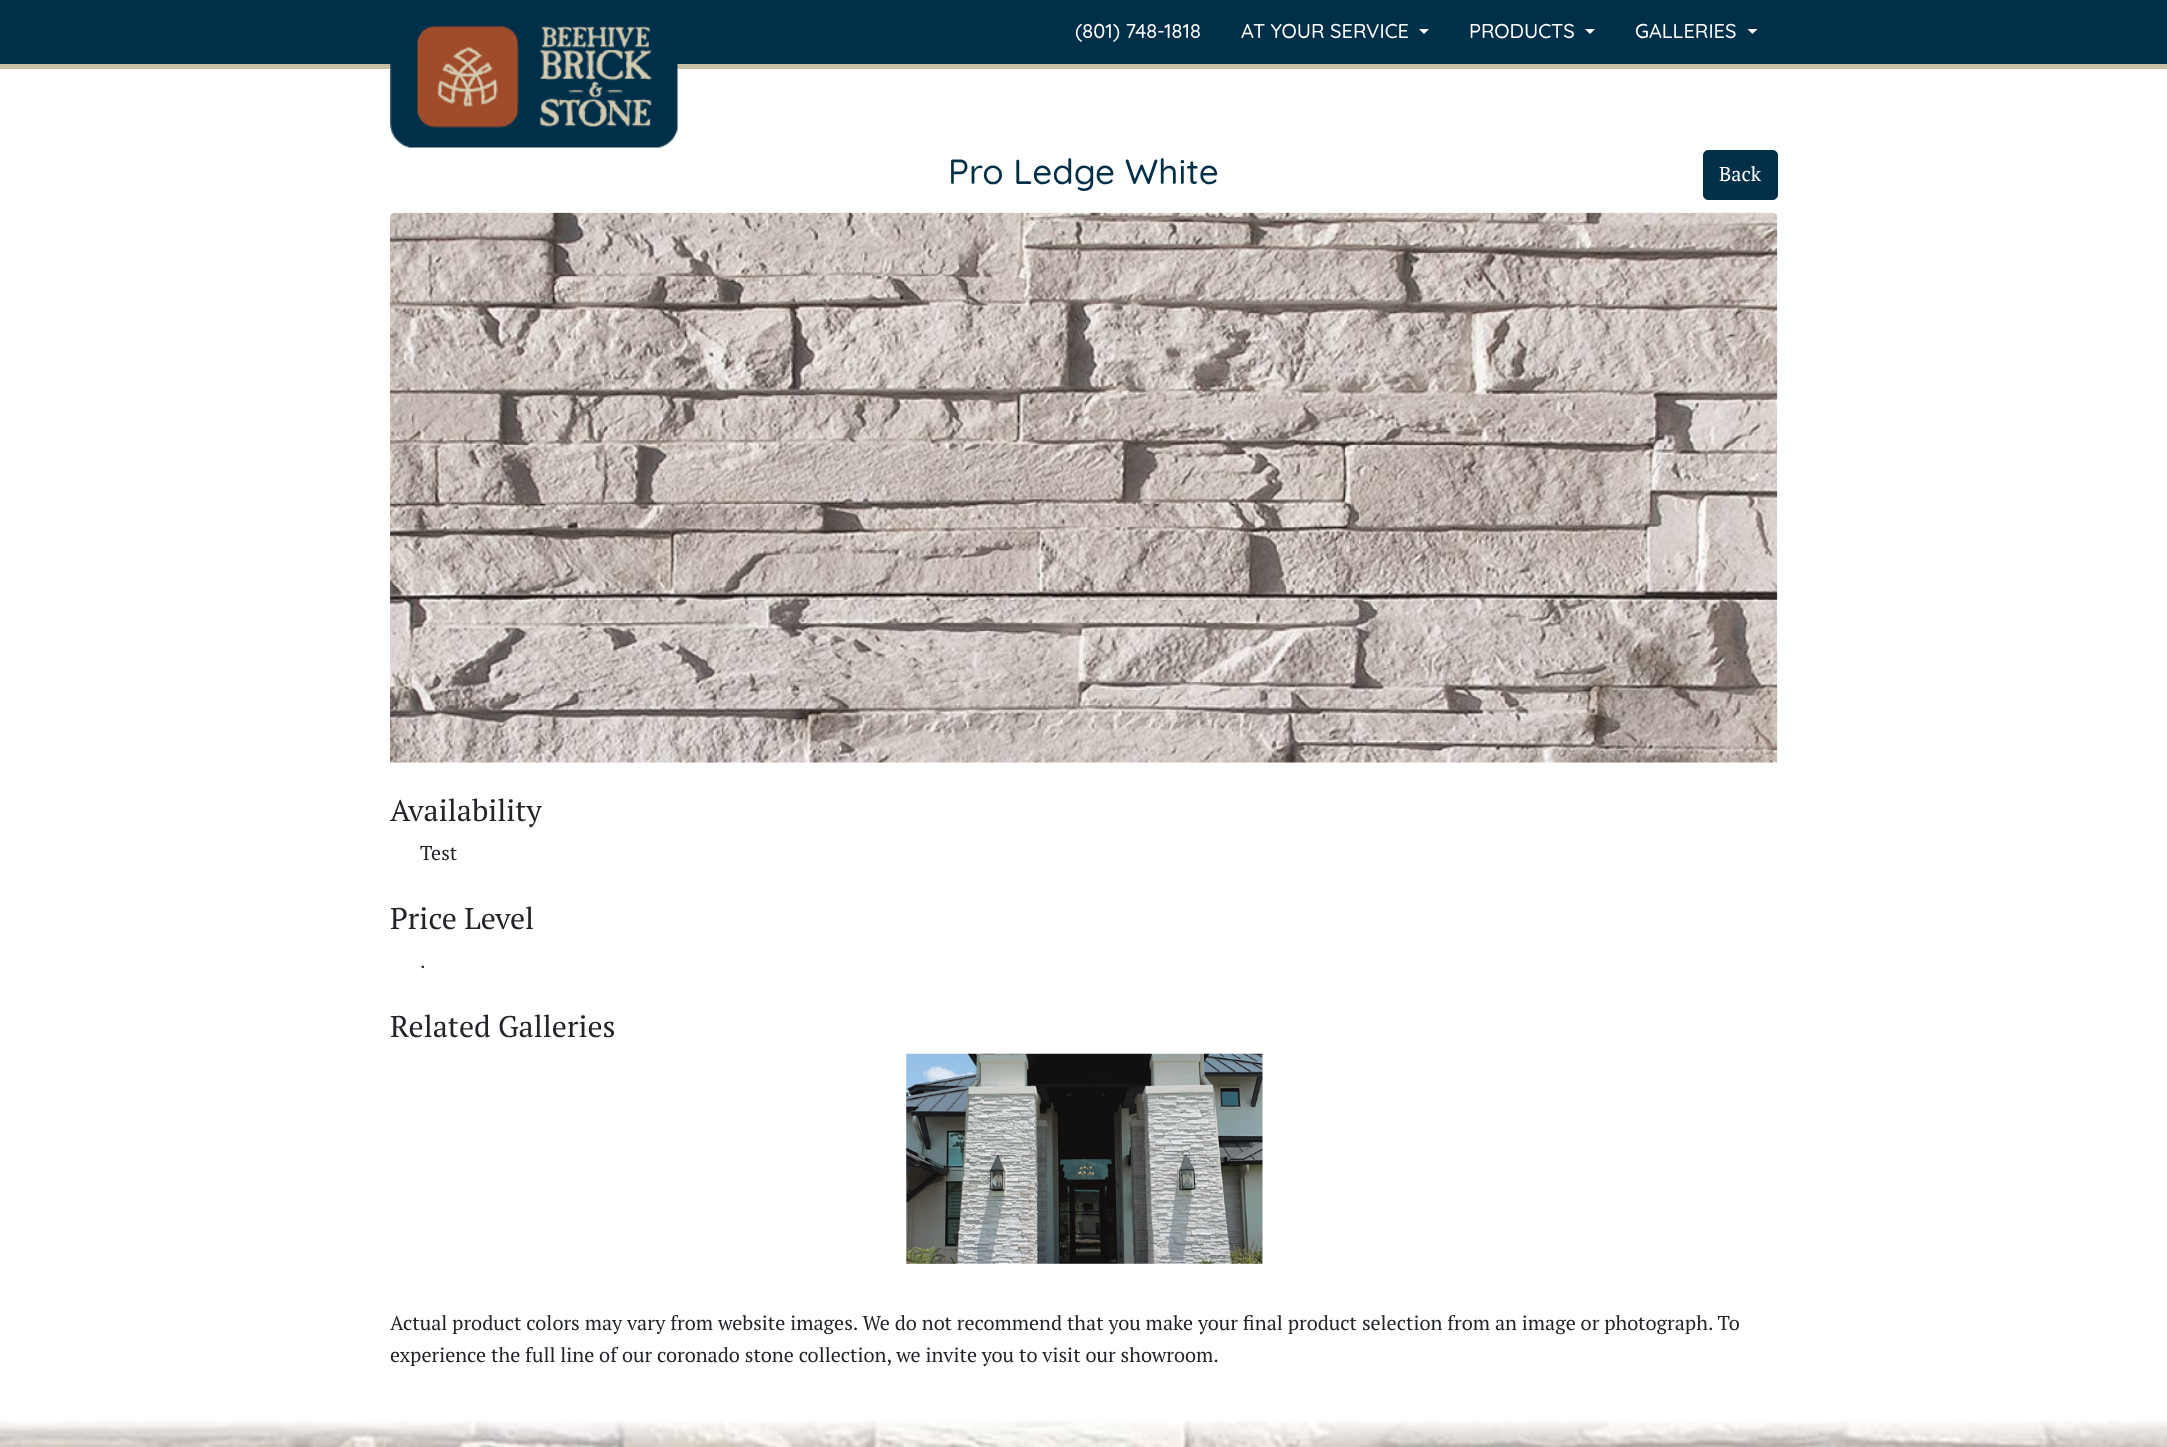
(async () => {
    const canvas = document.querySelector("canvas");
    canvas.width = 2167;
    canvas.height = 1447;
    const context = canvas.getContext("2d");
    context.miterLimit = 4;
    context.fontKerning = "normal";
    function write(s, x, y, font, color) {
        context.font = font;
        context.fillStyle = color;
        context.fillText(s, x, y);
    }
    function block(x, y, w, h, color) {
        context.fillStyle = color;
        context.fillRect(x, y, w, h);
    }
    async function photo(src, x, y, w, h) {
        const img = new Image();
        img.src = src;
        await img.decode();
        context.drawImage(img, x, y, w, h);
    }

    block(0, 0, 2167, 1447, "rgb(255, 255, 255)");
    block(0, 0, 2167, 64, "rgb(0, 48, 73)");
    block(0, 64, 2167, 5, "rgb(201, 191, 165)");
    await photo("media/1.png", 390, 5, 288, 143);
    write("(801) 748-1818", 1075, 38, "300 20px Quicksand", "rgb(255, 255, 255)");
    write("AT YOUR SERVICE", 1241, 38, "300 20px Quicksand", "rgb(255, 255, 255)");
    context.beginPath();
    context.moveTo(1419, 29);
    context.lineTo(1429, 29);
    context.lineTo(1424, 34);
    context.closePath();
    context.fill();
    write("PRODUCTS", 1469, 38, "300 20px Quicksand", "rgb(255, 255, 255)");
    context.beginPath();
    context.moveTo(1585, 29);
    context.lineTo(1595, 29);
    context.lineTo(1590, 34);
    context.closePath();
    context.fill();
    write("GALLERIES", 1635, 38, "300 20px Quicksand", "rgb(255, 255, 255)");
    context.beginPath();
    context.moveTo(1747.5, 29);
    context.lineTo(1757.5, 29);
    context.lineTo(1752.5, 34);
    context.closePath();
    context.fill();
    write("Pro Ledge White", 948, 184, "300 35px Quicksand", "rgb(0, 48, 73)");
    context.fillStyle = "rgb(2, 48, 72)";
    context.beginPath();
    context.roundRect(1703.5, 150.5, 74, 49, 4.5);
    context.fill();
    context.strokeStyle = "rgb(2, 48, 72)";
    context.stroke();
    write("Back", 1719, 181, "20px PT Serif", "rgb(255, 255, 255)");
    await photo("media/2.png", 390, 212, 1388, 551);
    write("Availability", 390, 821, "30px PT Serif", "rgb(33, 37, 41)");
    write("Test", 420, 860, "20px PT Serif", "rgb(33, 37, 41)");
    write("Price Level", 390, 929, "30px PT Serif", "rgb(33, 37, 41)");
    write(".", 420, 968, "20px PT Serif", "rgb(33, 37, 41)");
    write("Related Galleries", 390, 1037, "30px PT Serif", "rgb(33, 37, 41)");
    await photo("media/3.png", 906, 1053, 357, 211);
    write("Actual product colors may vary from website images. We do not recommend that you make your final product selection from an image or photograph. To", 390, 1330, "20px PT Serif", "rgb(33, 37, 41)");
    write("experience the full line of our coronado stone collection, we invite you to visit our showroom.", 390, 1362, "20px PT Serif", "rgb(33, 37, 41)");
    await photo("media/4.png", 0, 1421, 2167, 26);
})();
